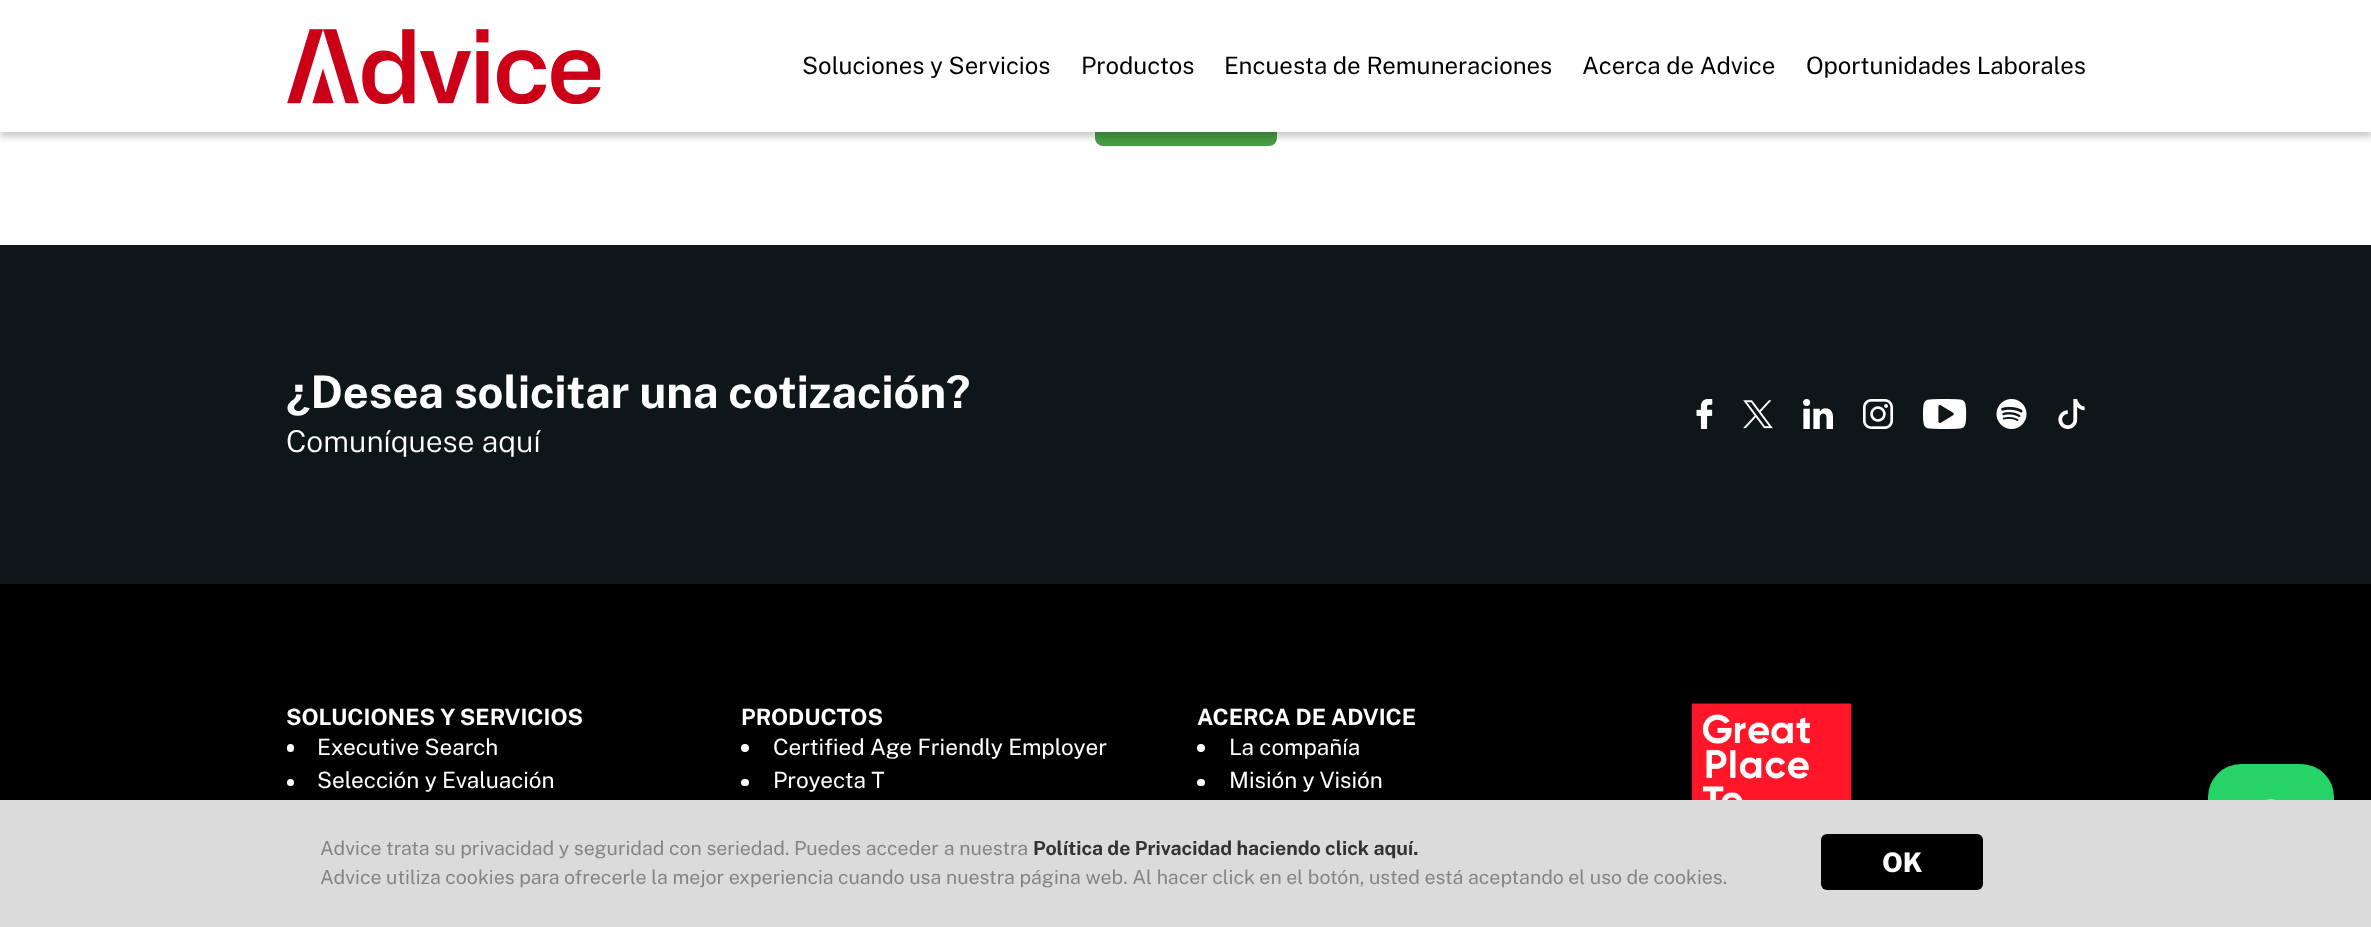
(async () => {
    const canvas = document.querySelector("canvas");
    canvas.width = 2371;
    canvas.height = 927;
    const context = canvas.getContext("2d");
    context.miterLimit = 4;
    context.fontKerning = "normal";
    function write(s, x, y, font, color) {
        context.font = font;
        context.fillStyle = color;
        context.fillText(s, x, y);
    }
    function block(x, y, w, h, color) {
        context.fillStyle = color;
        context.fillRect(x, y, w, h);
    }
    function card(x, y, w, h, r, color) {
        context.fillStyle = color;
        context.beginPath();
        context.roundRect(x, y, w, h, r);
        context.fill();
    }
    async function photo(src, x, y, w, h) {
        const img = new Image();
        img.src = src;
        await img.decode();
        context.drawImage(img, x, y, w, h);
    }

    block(0, 0, 2371, 927, "rgb(255, 255, 255)");
    card(1095, 84, 182, 62, 8, "rgb(71, 156, 68)");
    context.fillStyle = "rgba(0, 0, 0, 0.2)";
    context.filter = "blur(3px)";
    context.beginPath();
    context.rect(0, 5, 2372, 132);
    context.fill();
    context.filter = "none";
    block(0, 0, 2371, 132, "rgb(255, 255, 255)");
    await photo("media/1.png", 287, 29, 314, 75);
    write("Soluciones y Servicios", 802, 74, "24px Public Sans", "rgb(0, 0, 0)");
    write("Productos", 1081, 74, "24px Public Sans", "rgb(0, 0, 0)");
    write("Encuesta de Remuneraciones", 1224, 74, "24px Public Sans", "rgb(0, 0, 0)");
    write("Acerca de Advice", 1582, 74, "24px Public Sans", "rgb(0, 0, 0)");
    write("Oportunidades Laborales", 1806, 74, "24px Public Sans", "rgb(0, 0, 0)");
    block(0, 245, 2371, 339, "rgb(14, 22, 24)");
    write("¿Desea solicitar una cotización?", 286, 408, "bold 45px Public Sans", "rgb(255, 255, 255)");
    write("Comuníquese aquí", 286, 452, "300 30px Public Sans", "rgb(255, 255, 255)");
    await photo("media/2.png", 1696, 399, 17, 30);
    await photo("media/3.png", 1743, 400, 30, 29);
    await photo("media/4.png", 1803, 399, 30, 30);
    await photo("media/5.png", 1863, 399, 31, 30);
    await photo("media/6.png", 1923, 399, 44, 30);
    await photo("media/7.png", 1996, 399, 31, 30);
    await photo("media/8.png", 2058, 399, 27, 30);
    block(0, 584, 2371, 216, "rgb(0, 0, 0)");
    write("SOLUCIONES Y SERVICIOS", 286, 725, "bold 22.5px Public Sans", "rgb(255, 255, 255)");
    card(287, 744, 7, 8, 3.5, "rgb(255, 255, 255)");
    write("Executive Search", 317, 755, "22.5px Public Sans", "rgb(255, 255, 255)");
    context.beginPath();
    context.arc(290.5, 782.5, 3.5, 0, Math.PI * 2);
    context.fill();
    write("Selección y Evaluación", 317, 788, "22.5px Public Sans", "rgb(255, 255, 255)");
    write("PRODUCTOS", 741, 725, "bold 22.5px Public Sans", "rgb(255, 255, 255)");
    context.beginPath();
    context.arc(745, 748, 4, 0, Math.PI * 2);
    context.fill();
    write("Certified Age Friendly Employer", 773, 755, "22.5px Public Sans", "rgb(255, 255, 255)");
    card(741, 779, 8, 7, 3.5, "rgb(255, 255, 255)");
    write("Proyecta T", 773, 788, "22.5px Public Sans", "rgb(255, 255, 255)");
    write("ACERCA DE ADVICE", 1197, 725, "bold 22.5px Public Sans", "rgb(255, 255, 255)");
    context.beginPath();
    context.arc(1201, 748, 4, 0, Math.PI * 2);
    context.fill();
    write("La compañía", 1229, 755, "22.5px Public Sans", "rgb(255, 255, 255)");
    card(1197, 779, 8, 7, 3.5, "rgb(255, 255, 255)");
    write("Misión y Visión", 1229, 788, "22.5px Public Sans", "rgb(255, 255, 255)");
    await photo("media/9.png", 1691, 703, 161, 97);
    card(2208, 764, 126, 126, 33, "rgb(37, 211, 102)");
    block(0, 800, 2371, 127, "rgb(219, 219, 219)");
    write("Advice trata su privacidad y seguridad con seriedad. Puedes acceder a nuestra", 320, 855, "19.5px Public Sans", "rgb(133, 133, 133)");
    write("Política de Privacidad haciendo click aquí.", 1033, 855, "bold 19.5px Public Sans", "rgb(51, 51, 51)");
    write("Advice utiliza cookies para ofrecerle la mejor experiencia cuando usa nuestra página web. Al hacer click en el botón, usted está aceptando el uso de cookies.", 320, 884, "19.5px Public Sans", "rgb(133, 133, 133)");
    card(1821, 834, 162, 56, 6, "rgb(0, 0, 0)");
    write("OK", 1882, 872, "800 27px Public Sans", "rgb(255, 255, 255)");
    await photo("media/10.png", 2266, 799, 10, 1);
})();
